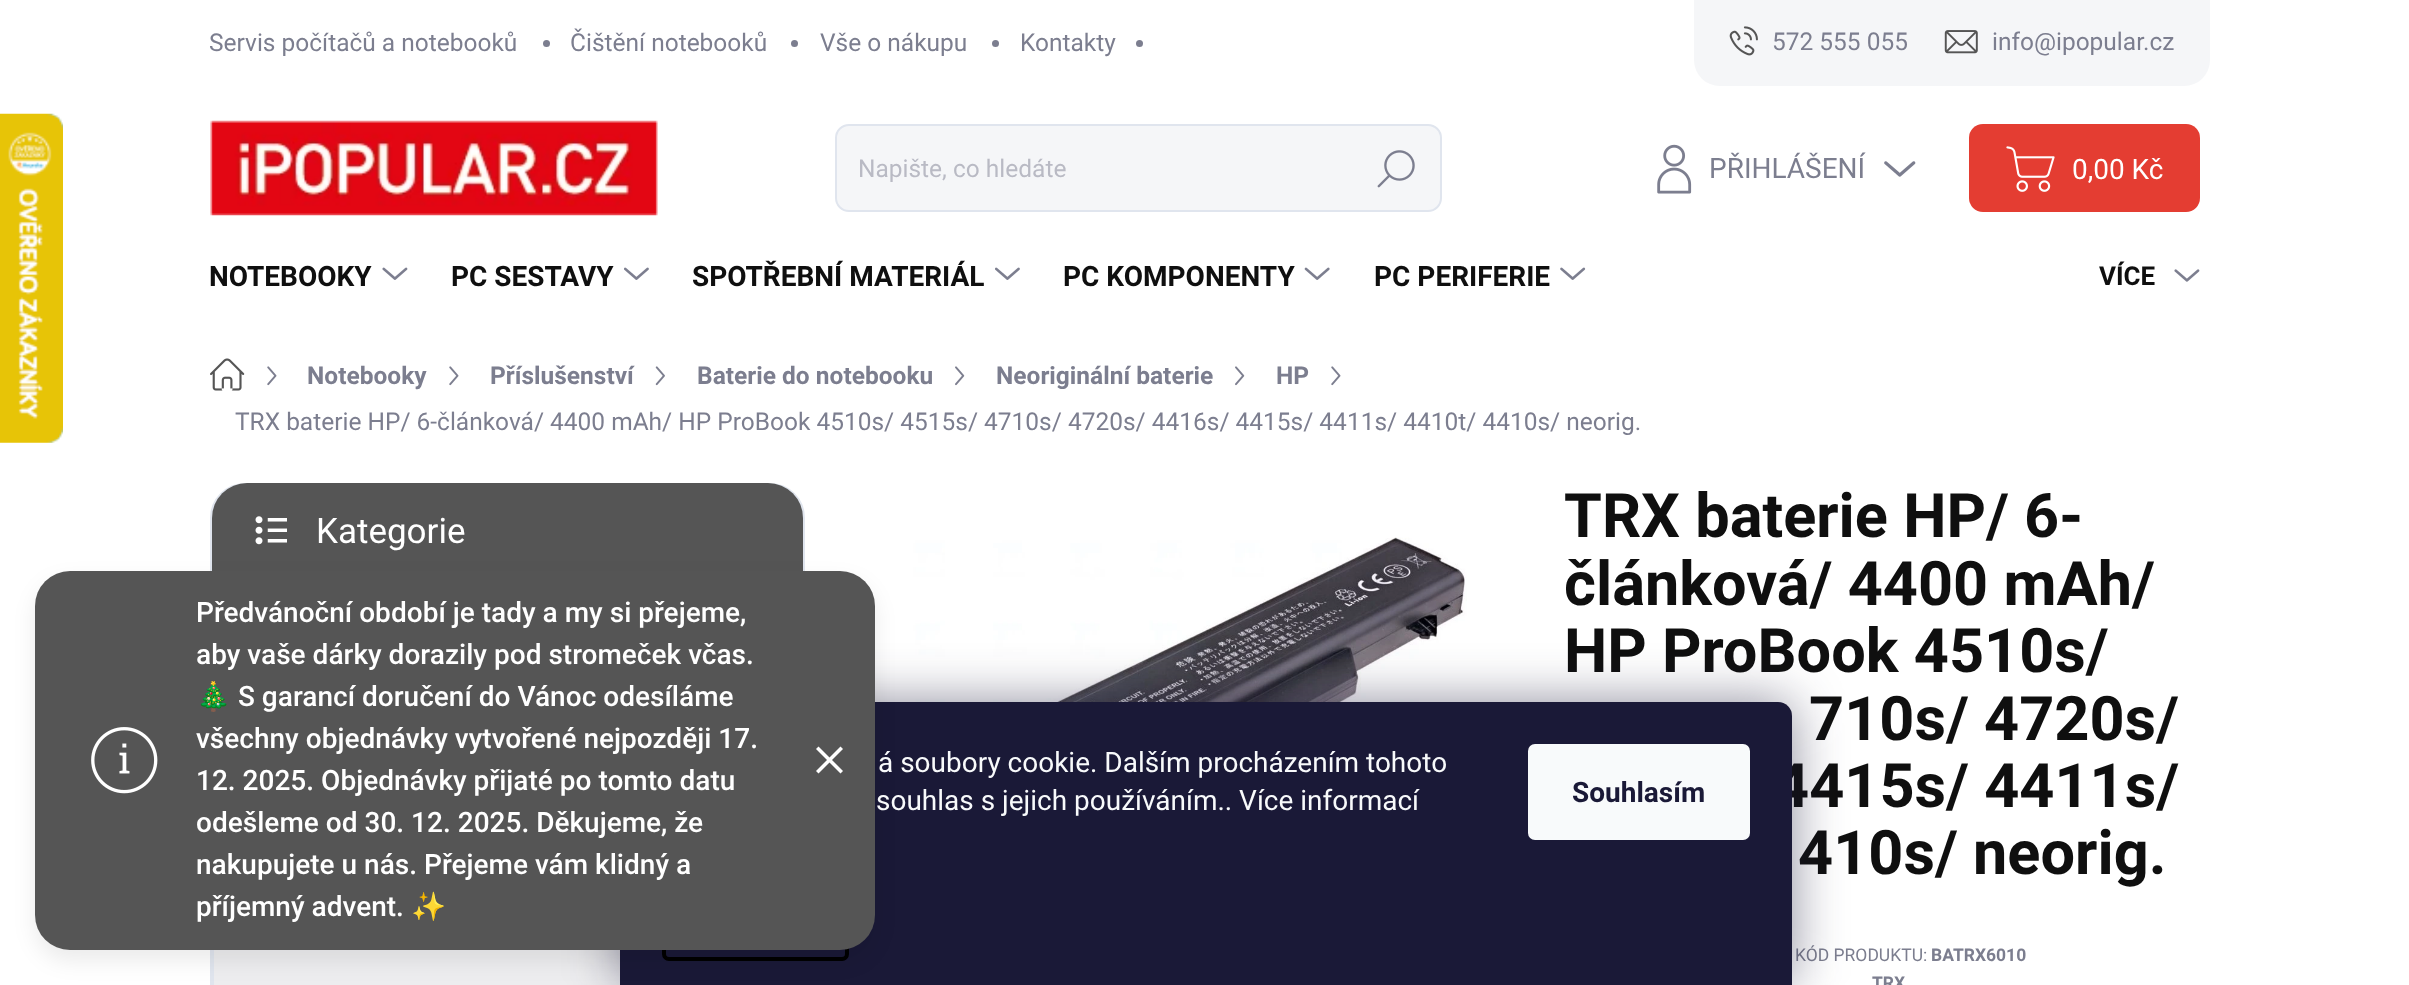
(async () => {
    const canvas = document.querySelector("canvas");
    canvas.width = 2409;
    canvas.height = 985;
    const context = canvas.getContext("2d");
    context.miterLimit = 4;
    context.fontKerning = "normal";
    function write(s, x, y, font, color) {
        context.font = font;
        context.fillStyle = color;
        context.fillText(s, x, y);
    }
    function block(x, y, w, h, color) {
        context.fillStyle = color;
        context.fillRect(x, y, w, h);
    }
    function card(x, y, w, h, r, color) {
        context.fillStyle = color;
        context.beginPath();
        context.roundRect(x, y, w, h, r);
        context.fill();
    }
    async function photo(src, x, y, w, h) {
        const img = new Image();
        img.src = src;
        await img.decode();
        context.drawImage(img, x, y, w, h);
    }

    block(0, 0, 2409, 985, "rgb(255, 255, 255)");
    await photo("media/1.png", 0, 113, 63, 330);
    write("Servis počítačů a notebooků", 209, 51, "24.5px Roboto", "rgb(124, 126, 143)");
    context.beginPath();
    context.arc(546.5, 43.5, 3.5, 0, Math.PI * 2);
    context.fill();
    write("Čištění notebooků", 570, 51, "24.5px Roboto", "rgb(124, 126, 143)");
    context.beginPath();
    context.arc(794.5, 43.5, 3.5, 0, Math.PI * 2);
    context.fill();
    write("Vše o nákupu", 820, 51, "24.5px Roboto", "rgb(124, 126, 143)");
    context.beginPath();
    context.arc(995.5, 43.5, 3.5, 0, Math.PI * 2);
    context.fill();
    write("Kontakty", 1020, 51, "24.5px Roboto", "rgb(124, 126, 143)");
    context.beginPath();
    context.arc(1139.5, 43.5, 3.5, 0, Math.PI * 2);
    context.fill();
    context.fillStyle = "rgb(245, 246, 248)";
    context.beginPath();
    context.roundRect(1694, 0, 516, 86, [0, 0, 26, 26]);
    context.fill();
    await photo("media/2.png", 1729, 26, 29, 30);
    write("572 555 055", 1772, 50, "24.5px Roboto", "rgb(124, 126, 143)");
    await photo("media/3.png", 1944, 30, 34, 24);
    write("info@ipopular.cz", 1992, 50, "24.5px Roboto", "rgb(124, 126, 143)");
    await photo("media/4.png", 210, 120, 448, 96);
    context.fillStyle = "rgb(245, 246, 248)";
    context.beginPath();
    context.roundRect(836, 125, 605, 86, 13);
    context.fill();
    context.strokeStyle = "rgb(224, 229, 238)";
    context.lineWidth = 2;
    context.stroke();
    write("Napište, co hledáte", 858, 177, "24.5px Roboto", "rgb(185, 186, 196)");
    await photo("media/5.png", 1377, 150, 38, 38);
    await photo("media/6.png", 1657, 144, 35, 50);
    write("PŘIHLÁŠENÍ", 1709, 178, "28px Roboto", "rgb(124, 126, 143)");
    await photo("media/7.png", 1884, 161, 32, 16);
    card(1969, 124, 231, 88, 14, "rgb(228, 61, 50)");
    await photo("media/8.png", 2006, 146, 49, 46);
    write("0,00 Kč", 2072, 179, "28px Roboto", "rgb(255, 255, 255)");
    write("NOTEBOOKY", 209, 286, "bold 28px Roboto", "rgb(15, 15, 15)");
    await photo("media/9.png", 382, 267, 26, 13);
    write("PC SESTAVY", 451, 286, "bold 28px Roboto", "rgb(15, 15, 15)");
    await photo("media/10.png", 624, 267, 25, 13);
    write("SPOTŘEBNÍ MATERIÁL", 692, 286, "bold 28px Roboto", "rgb(15, 15, 15)");
    await photo("media/10.png", 995, 267, 25, 13);
    write("PC KOMPONENTY", 1063, 286, "bold 28px Roboto", "rgb(15, 15, 15)");
    await photo("media/11.png", 1304, 267, 26, 13);
    write("PC PERIFERIE", 1374, 286, "bold 28px Roboto", "rgb(15, 15, 15)");
    await photo("media/12.png", 1560, 267, 26, 13);
    write("VÍCE", 2099, 285, "bold 26px Roboto", "rgb(15, 15, 15)");
    await photo("media/13.png", 2174, 269, 26, 13);
    await photo("media/14.png", 210, 358, 35, 33);
    await photo("media/15.png", 267, 366, 10, 20);
    write("Notebooky", 307, 384, "bold 24.5px Roboto", "rgb(124, 126, 143)");
    await photo("media/15.png", 449, 366, 10, 20);
    write("Příslušenství", 490, 384, "bold 24.5px Roboto", "rgb(124, 126, 143)");
    await photo("media/16.png", 655, 366, 10, 20);
    write("Baterie do notebooku", 697, 384, "bold 24.5px Roboto", "rgb(124, 126, 143)");
    await photo("media/17.png", 955, 366, 10, 20);
    write("Neoriginální baterie", 996, 384, "bold 24.5px Roboto", "rgb(124, 126, 143)");
    await photo("media/17.png", 1235, 366, 10, 20);
    write("HP", 1276, 384, "bold 24.5px Roboto", "rgb(124, 126, 143)");
    await photo("media/15.png", 1331, 366, 10, 20);
    write("TRX baterie HP/ 6-článková/ 4400 mAh/ HP ProBook 4510s/ 4515s/ 4710s/ 4720s/ 4416s/ 4415s/ 4411s/ 4410t/ 4410s/ neorig.", 235, 430, "24.5px Roboto", "rgb(124, 126, 143)");
    context.fillStyle = "rgb(237, 237, 239)";
    context.beginPath();
    context.roundRect(212, 485, 591, 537, 33);
    context.fill();
    context.lineWidth = 4;
    context.stroke();
    context.fillStyle = "rgb(85, 85, 85)";
    context.beginPath();
    context.roundRect(212, 483, 591, 95, [35, 35, 0, 0]);
    context.fill();
    await photo("media/18.png", 255, 516, 32, 29);
    write("Kategorie", 316, 543, "35px Roboto", "rgb(255, 255, 255)");
    await photo("media/19.png", 867, 537, 600, 165);
    write("TRX baterie HP/ 6-", 1564, 537, "bold 61.25px Roboto", "rgb(15, 15, 15)");
    write("článková/ 4400 mAh/", 1564, 605, "bold 61.25px Roboto", "rgb(15, 15, 15)");
    write("HP ProBook 4510s/", 1564, 672, "bold 61.25px Roboto", "rgb(15, 15, 15)");
    write("710s/ 4720s/", 1809, 740, "bold 61.25px Roboto", "rgb(15, 15, 15)");
    write("4415s/ 4411s/", 1774, 807, "bold 61.25px Roboto", "rgb(15, 15, 15)");
    write("410s/ neorig.", 1798, 874, "bold 61.25px Roboto", "rgb(15, 15, 15)");
    write("KÓD PRODUKTU:", 1795, 961, "17.5px Roboto", "rgb(124, 126, 143)");
    write("BATRX6010", 1931, 961, "bold 17.5px Roboto", "rgb(124, 126, 143)");
    write("TRX", 1872, 989, "bold 17.5px Roboto", "rgb(124, 126, 143)");
    context.fillStyle = "rgba(27, 25, 57, 0.5)";
    context.filter = "blur(26px)";
    context.beginPath();
    context.roundRect(620, 702, 1172, 283, 14);
    context.fill();
    context.filter = "none";
    context.fillStyle = "rgb(26, 25, 55)";
    context.beginPath();
    context.roundRect(620, 702, 1172, 283, [14, 14, 0, 0]);
    context.fill();
    context.beginPath();
    context.roundRect(664, 889, 183, 70, 5);
    context.strokeStyle = "rgb(0, 0, 0)";
    context.stroke();
    context.fillStyle = "rgba(0, 0, 0, 0.08)";
    context.filter = "blur(10.5px)";
    context.beginPath();
    context.roundRect(35, 581, 840, 380, 35);
    context.fill();
    context.filter = "none";
    card(35, 571, 840, 379, 35, "rgb(85, 85, 85)");
    write("Předvánoční období je tady a my si přejeme,", 196, 622, "500 28px Roboto", "rgb(255, 255, 255)");
    write("aby vaše dárky dorazily pod stromeček včas.", 196, 664, "500 28px Roboto", "rgb(255, 255, 255)");
    write("🎄", 196, 706, "28px Noto Color Emoji", "rgb(255, 255, 255)");
    write("S garancí doručení do Vánoc odesíláme", 238, 706, "500 28px Roboto", "rgb(255, 255, 255)");
    await photo("media/20.png", 91, 727, 67, 67);
    write("všechny objednávky vytvořené nejpozději 17.", 196, 748, "500 28px Roboto", "rgb(255, 255, 255)");
    write("12. 2025. Objednávky přijaté po tomto datu", 196, 790, "500 28px Roboto", "rgb(255, 255, 255)");
    write("odešleme od 30. 12. 2025. Děkujeme, že", 196, 832, "500 28px Roboto", "rgb(255, 255, 255)");
    write("nakupujete u nás. Přejeme vám klidný a", 196, 874, "500 28px Roboto", "rgb(255, 255, 255)");
    write("příjemný advent.", 196, 916, "500 28px Roboto", "rgb(255, 255, 255)");
    write("✨", 411, 916, "28px Noto Color Emoji", "rgb(255, 255, 255)");
    context.beginPath();
    context.moveTo(840.5, 746.5);
    context.lineTo(843, 749);
    context.lineTo(818.5, 773.5);
    context.lineTo(816, 771);
    context.closePath();
    context.fill();
    context.beginPath();
    context.moveTo(818.5, 746.5);
    context.lineTo(843, 771);
    context.lineTo(840.5, 773.5);
    context.lineTo(816, 749);
    context.closePath();
    context.fill();
    write("á soubory cookie. Dalším procházením tohoto", 878, 772, "28px Roboto", "rgb(248, 250, 251)");
    write("souhlas s jejich používáním.. Více informací", 876, 810, "28px Roboto", "rgb(248, 250, 251)");
    card(1528, 744, 222, 96, 7, "rgb(248, 250, 251)");
    write("Souhlasím", 1572, 802, "bold 28px Roboto", "rgb(26, 25, 55)");
})();
